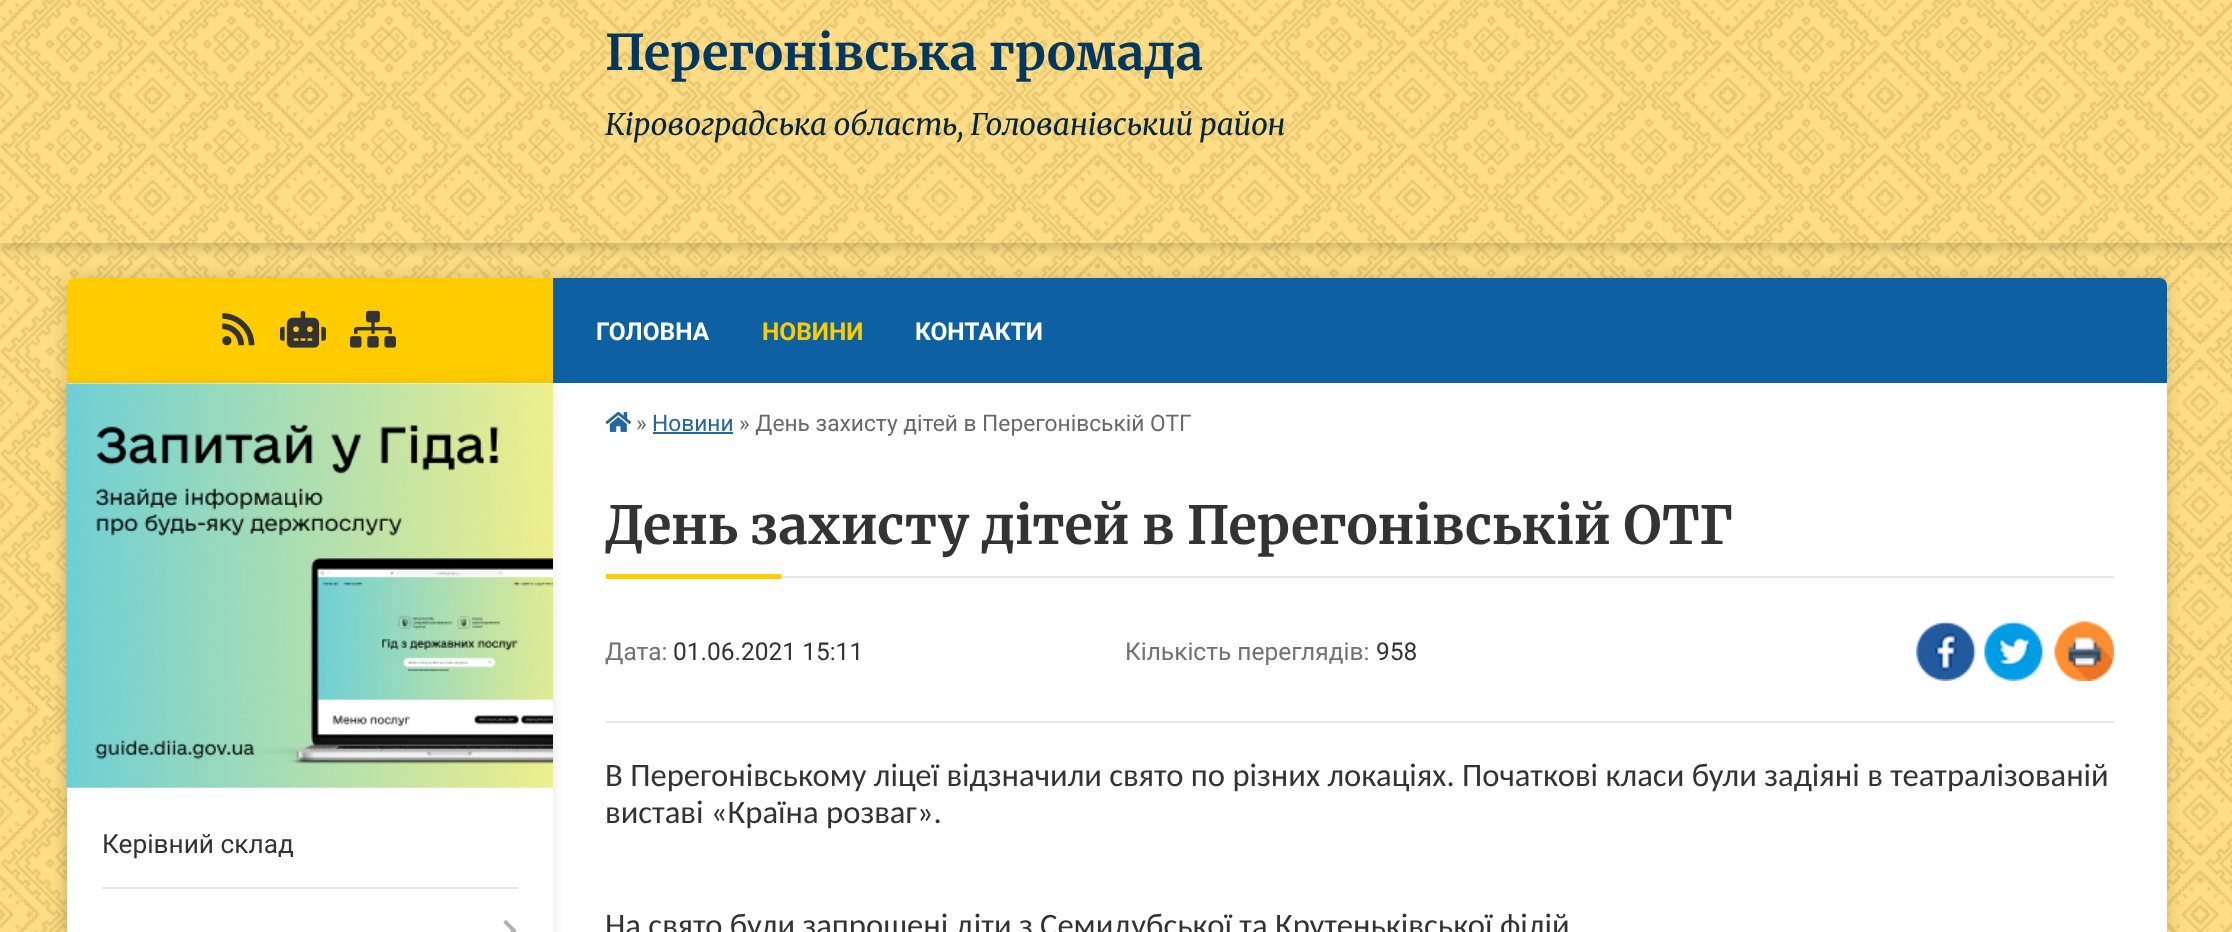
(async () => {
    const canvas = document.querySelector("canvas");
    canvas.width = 2232;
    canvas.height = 932;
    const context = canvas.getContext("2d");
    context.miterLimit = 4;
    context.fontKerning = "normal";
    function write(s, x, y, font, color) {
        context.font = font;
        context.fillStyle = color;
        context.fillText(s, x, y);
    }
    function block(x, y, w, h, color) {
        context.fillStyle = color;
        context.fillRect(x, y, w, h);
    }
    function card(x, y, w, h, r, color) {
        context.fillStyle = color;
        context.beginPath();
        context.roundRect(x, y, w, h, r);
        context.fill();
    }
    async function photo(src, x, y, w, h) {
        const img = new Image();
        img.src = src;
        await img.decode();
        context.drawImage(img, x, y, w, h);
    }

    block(0, 0, 2232, 932, "rgb(255, 218, 117)");
    await photo("media/1.png", 0, 0, 2232, 932);
    context.save();
    context.beginPath();
    context.rect(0, 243, 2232, 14);
    context.clip();
    context.fillStyle = "rgba(0, 0, 0, 0.3)";
    context.filter = "blur(9px)";
    context.beginPath();
    context.rect(0, -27, 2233, 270);
    context.fill();
    context.filter = "none";
    context.restore();
    write("Перегонівська громада", 605, 70, "300 49px Merriweather", "rgb(2, 55, 95)");
    write("Кіровоградська область, Голованівський район", 605, 135, "italic 300 29.75px Merriweather", "rgb(5, 37, 62)");
    context.fillStyle = "rgba(0, 0, 0, 0.15)";
    context.filter = "blur(9px)";
    context.beginPath();
    context.roundRect(67, 278, 2100, 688, 7);
    context.fill();
    context.filter = "none";
    card(67, 278, 2100, 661, 7, "rgb(255, 255, 255)");
    context.fillStyle = "rgb(255, 204, 0)";
    context.beginPath();
    context.roundRect(67, 278, 486, 105, [7, 0, 0, 0]);
    context.fill();
    await photo("media/2.png", 222, 313, 33, 33);
    await photo("media/3.png", 280, 310, 46, 38);
    await photo("media/4.png", 350, 310, 46, 38);
    context.fillStyle = "rgb(13, 97, 162)";
    context.beginPath();
    context.roundRect(553, 278, 1614, 105, [0, 7, 0, 0]);
    context.fill();
    context.save();
    context.beginPath();
    context.moveTo(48, 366);
    context.lineTo(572, 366);
    context.lineTo(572, 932);
    context.lineTo(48, 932);
    context.closePath();
    context.moveTo(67, 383);
    context.lineTo(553, 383);
    context.lineTo(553, 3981);
    context.lineTo(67, 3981);
    context.closePath();
    context.clip("evenodd");
    context.fillStyle = "rgba(0, 0, 0, 0.1)";
    context.filter = "blur(6px)";
    context.beginPath();
    context.rect(67, 385, 486, 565);
    context.fill();
    context.filter = "none";
    context.restore();
    await photo("media/5.png", 66, 383, 487, 405);
    write("Керівний склад", 102, 853, "26.25px Roboto", "rgb(51, 51, 51)");
    block(102, 887, 416, 2, "rgb(230, 230, 230)");
    await photo("media/6.png", 503, 920, 14, 12);
    write("ГОЛОВНА", 596, 340, "bold 24.5px Roboto", "rgb(255, 255, 255)");
    write("НОВИНИ", 762, 340, "bold 24.5px Roboto", "rgb(255, 204, 0)");
    write("КОНТАКТИ", 915, 340, "bold 24.5px Roboto", "rgb(255, 255, 255)");
    await photo("media/7.png", 605, 412, 27, 20);
    write("»", 636, 431, "22.75px Roboto", "rgb(105, 105, 105)");
    write("Новини", 652, 431, "22.75px Roboto", "rgb(37, 102, 156)");
    block(653, 432, 80, 2, "rgb(37, 102, 156)");
    write("» День захисту дітей в Перегонівській ОТГ", 739, 431, "22.75px Roboto", "rgb(105, 105, 105)");
    block(781, 576, 1333, 2, "rgb(229, 229, 229)");
    write("День захисту дітей в Перегонівській ОТГ", 605, 544, "300 52.5px Merriweather", "rgb(51, 51, 51)");
    block(606, 574, 175, 5, "rgb(255, 204, 0)");
    write("Дата:", 605, 660, "24.5px Roboto", "rgb(114, 114, 114)");
    write("01.06.2021 15:11", 673, 660, "24.5px Roboto", "rgb(51, 51, 51)");
    write("Кількість переглядів:", 1125, 660, "24.5px Roboto", "rgb(114, 114, 114)");
    write("958", 1376, 660, "24.5px Roboto", "rgb(51, 51, 51)");
    await photo("media/8.png", 1916, 621, 60, 60);
    await photo("media/9.png", 1984, 621, 59, 60);
    await photo("media/10.png", 2054, 621, 60, 60);
    block(606, 721, 1508, 2, "rgb(229, 229, 229)");
    write("В Перегонівському ліцеї відзначили свято по різних локаціях. Початкові класи були задіяні в театралізованій", 605, 786, "32.65px Carlito", "rgb(51, 51, 51)");
    write("виставі «Країна розваг».", 605, 823, "32.65px Carlito", "rgb(51, 51, 51)");
    write("На свято були запрошені діти з Семидубської та Крутеньківської філій", 605, 936, "32.65px Carlito", "rgb(51, 51, 51)");
})();
